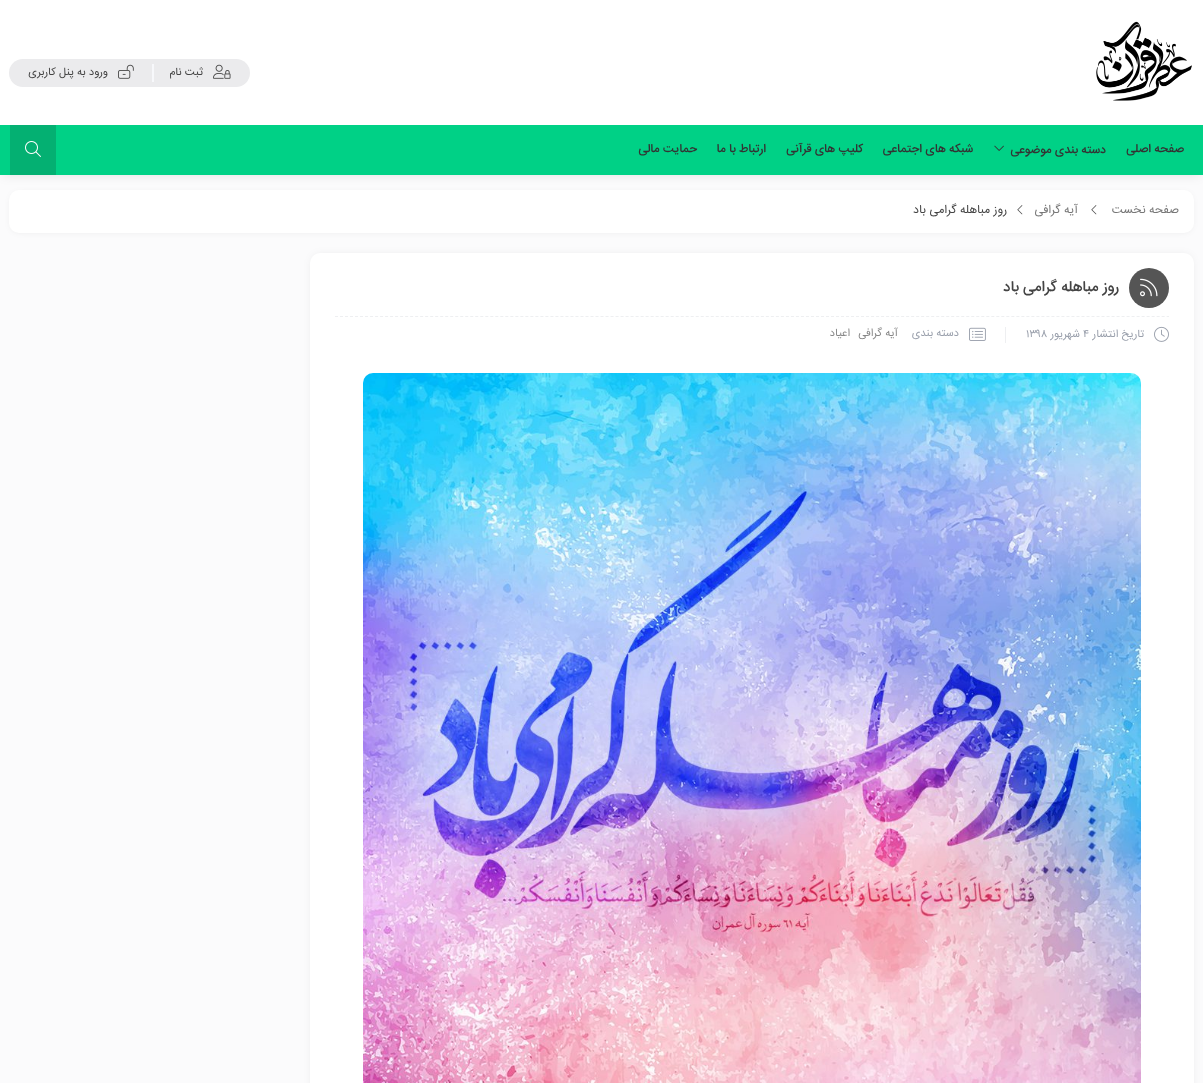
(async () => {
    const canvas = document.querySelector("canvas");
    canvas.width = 1203;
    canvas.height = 1083;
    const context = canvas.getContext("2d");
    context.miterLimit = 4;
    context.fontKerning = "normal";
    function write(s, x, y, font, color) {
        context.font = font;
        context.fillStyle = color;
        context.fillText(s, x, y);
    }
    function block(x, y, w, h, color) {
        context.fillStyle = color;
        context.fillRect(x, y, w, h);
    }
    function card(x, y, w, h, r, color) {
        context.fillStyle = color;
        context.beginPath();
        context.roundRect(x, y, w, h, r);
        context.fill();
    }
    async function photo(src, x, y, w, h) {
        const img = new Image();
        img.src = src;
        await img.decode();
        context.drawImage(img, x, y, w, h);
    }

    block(0, 0, 1203, 1083, "rgb(251, 251, 252)");
    context.fillStyle = "rgba(0, 0, 0, 0.1)";
    context.filter = "blur(3.5px)";
    context.beginPath();
    context.roundRect(12, 194, 1179, 37, 7);
    context.fill();
    context.filter = "none";
    card(9, 190, 1185, 43, 10, "rgb(255, 255, 255)");
    context.fillStyle = "rgba(0, 0, 0, 0.1)";
    context.filter = "blur(5.5px)";
    context.beginPath();
    context.rect(3, 6, 1197, 169);
    context.fill();
    context.filter = "none";
    block(0, 0, 1203, 125, "rgb(255, 255, 255)");
    await photo("media/1.png", 1096, 21, 96, 80);
    card(9, 59, 241, 28, 14, "rgb(235, 235, 237)");
    await photo("media/2.png", 213, 64, 18, 15);
    context.direction = "rtl";
    write("ثبت نام", 203, 75, "11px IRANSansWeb", "rgb(68, 68, 68)");
    block(152, 64, 2, 18, "rgb(247, 248, 251)");
    await photo("media/3.png", 118, 64, 16, 15);
    write("ورود به پنل کاربری", 108, 75, "11px IRANSansWeb", "rgb(68, 68, 68)");
    block(0, 125, 1203, 50, "rgb(0, 209, 134)");
    write("صفحه اصلی", 1184, 152, "500 12px IRANSansWeb", "rgb(51, 51, 51)");
    write("دسته بندی موضوعی", 1106, 153, "500 12px IRANSansWeb", "rgb(51, 51, 51)");
    await photo("media/4.png", 994, 145, 10, 6);
    write("شبکه های اجتماعی", 973, 152, "500 12px IRANSansWeb", "rgb(51, 51, 51)");
    write("کلیپ های قرآنی", 863, 152, "500 12px IRANSansWeb", "rgb(51, 51, 51)");
    write("ارتباط با ما", 766, 152, "500 12px IRANSansWeb", "rgb(51, 51, 51)");
    write("حمایت مالی", 697, 152, "500 12px IRANSansWeb", "rgb(51, 51, 51)");
    block(10, 125, 46, 50, "rgb(4, 176, 114)");
    await photo("media/5.png", 25, 141, 16, 16);
    write("صفحه نخست", 1179, 213, "12px IRANSansWeb", "rgb(119, 119, 119)");
    await photo("media/6.png", 1091, 205, 6, 10);
    write("آیه گرافی", 1078, 213, "12px IRANSansWeb", "rgb(119, 119, 119)");
    await photo("media/6.png", 1017, 205, 6, 10);
    write("روز مباهله گرامی باد", 1007, 213, "12px IRANSansWeb", "rgb(68, 68, 68)");
    context.fillStyle = "rgba(0, 0, 0, 0.1)";
    context.filter = "blur(5px)";
    context.beginPath();
    context.roundRect(313, 256, 878, 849, 7);
    context.fill();
    context.filter = "none";
    card(310, 253, 884, 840, 10, "rgb(255, 255, 255)");
    context.fillStyle = "rgb(85, 85, 85)";
    context.beginPath();
    context.arc(1149, 288, 20, 0, Math.PI * 2);
    context.fill();
    await photo("media/7.png", 1140, 278, 18, 19);
    write("روز مباهله گرامی باد", 1119, 291, "500 15px IRANSansWeb", "rgb(68, 68, 68)");
    context.beginPath();
    context.moveTo(335, 316.5);
    context.lineTo(1169, 316.5);
    context.strokeStyle = "rgb(238, 239, 241)";
    context.setLineDash([3, 2.01]);
    context.stroke();
    block(1005, 327, 1, 16, "rgb(238, 239, 241)");
    await photo("media/8.png", 1154, 326, 15, 16);
    write("تاریخ انتشار", 1144, 337, "11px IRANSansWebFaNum", "rgb(154, 160, 172)");
    context.direction = "ltr";
    write("۴", 1083, 337, "11px IRANSansWebFaNum", "rgb(154, 160, 172)");
    context.direction = "rtl";
    write("شهریور", 1080, 337, "11px IRANSansWebFaNum", "rgb(154, 160, 172)");
    context.direction = "ltr";
    write("۱۳۹۸", 1026, 337, "11px IRANSansWebFaNum", "rgb(154, 160, 172)");
    await photo("media/9.png", 969, 327, 17, 14);
    context.direction = "rtl";
    write("دسته بندی", 959, 336, "11px IRANSansWebFaNum", "rgb(154, 160, 172)");
    write("آیه گرافی", 898, 336, "11px IRANSansWebFaNum", "rgb(136, 136, 136)");
    write("اعیاد", 850, 336, "11px IRANSansWebFaNum", "rgb(136, 136, 136)");
    await photo("media/10.png", 363, 373, 778, 710);
})();
